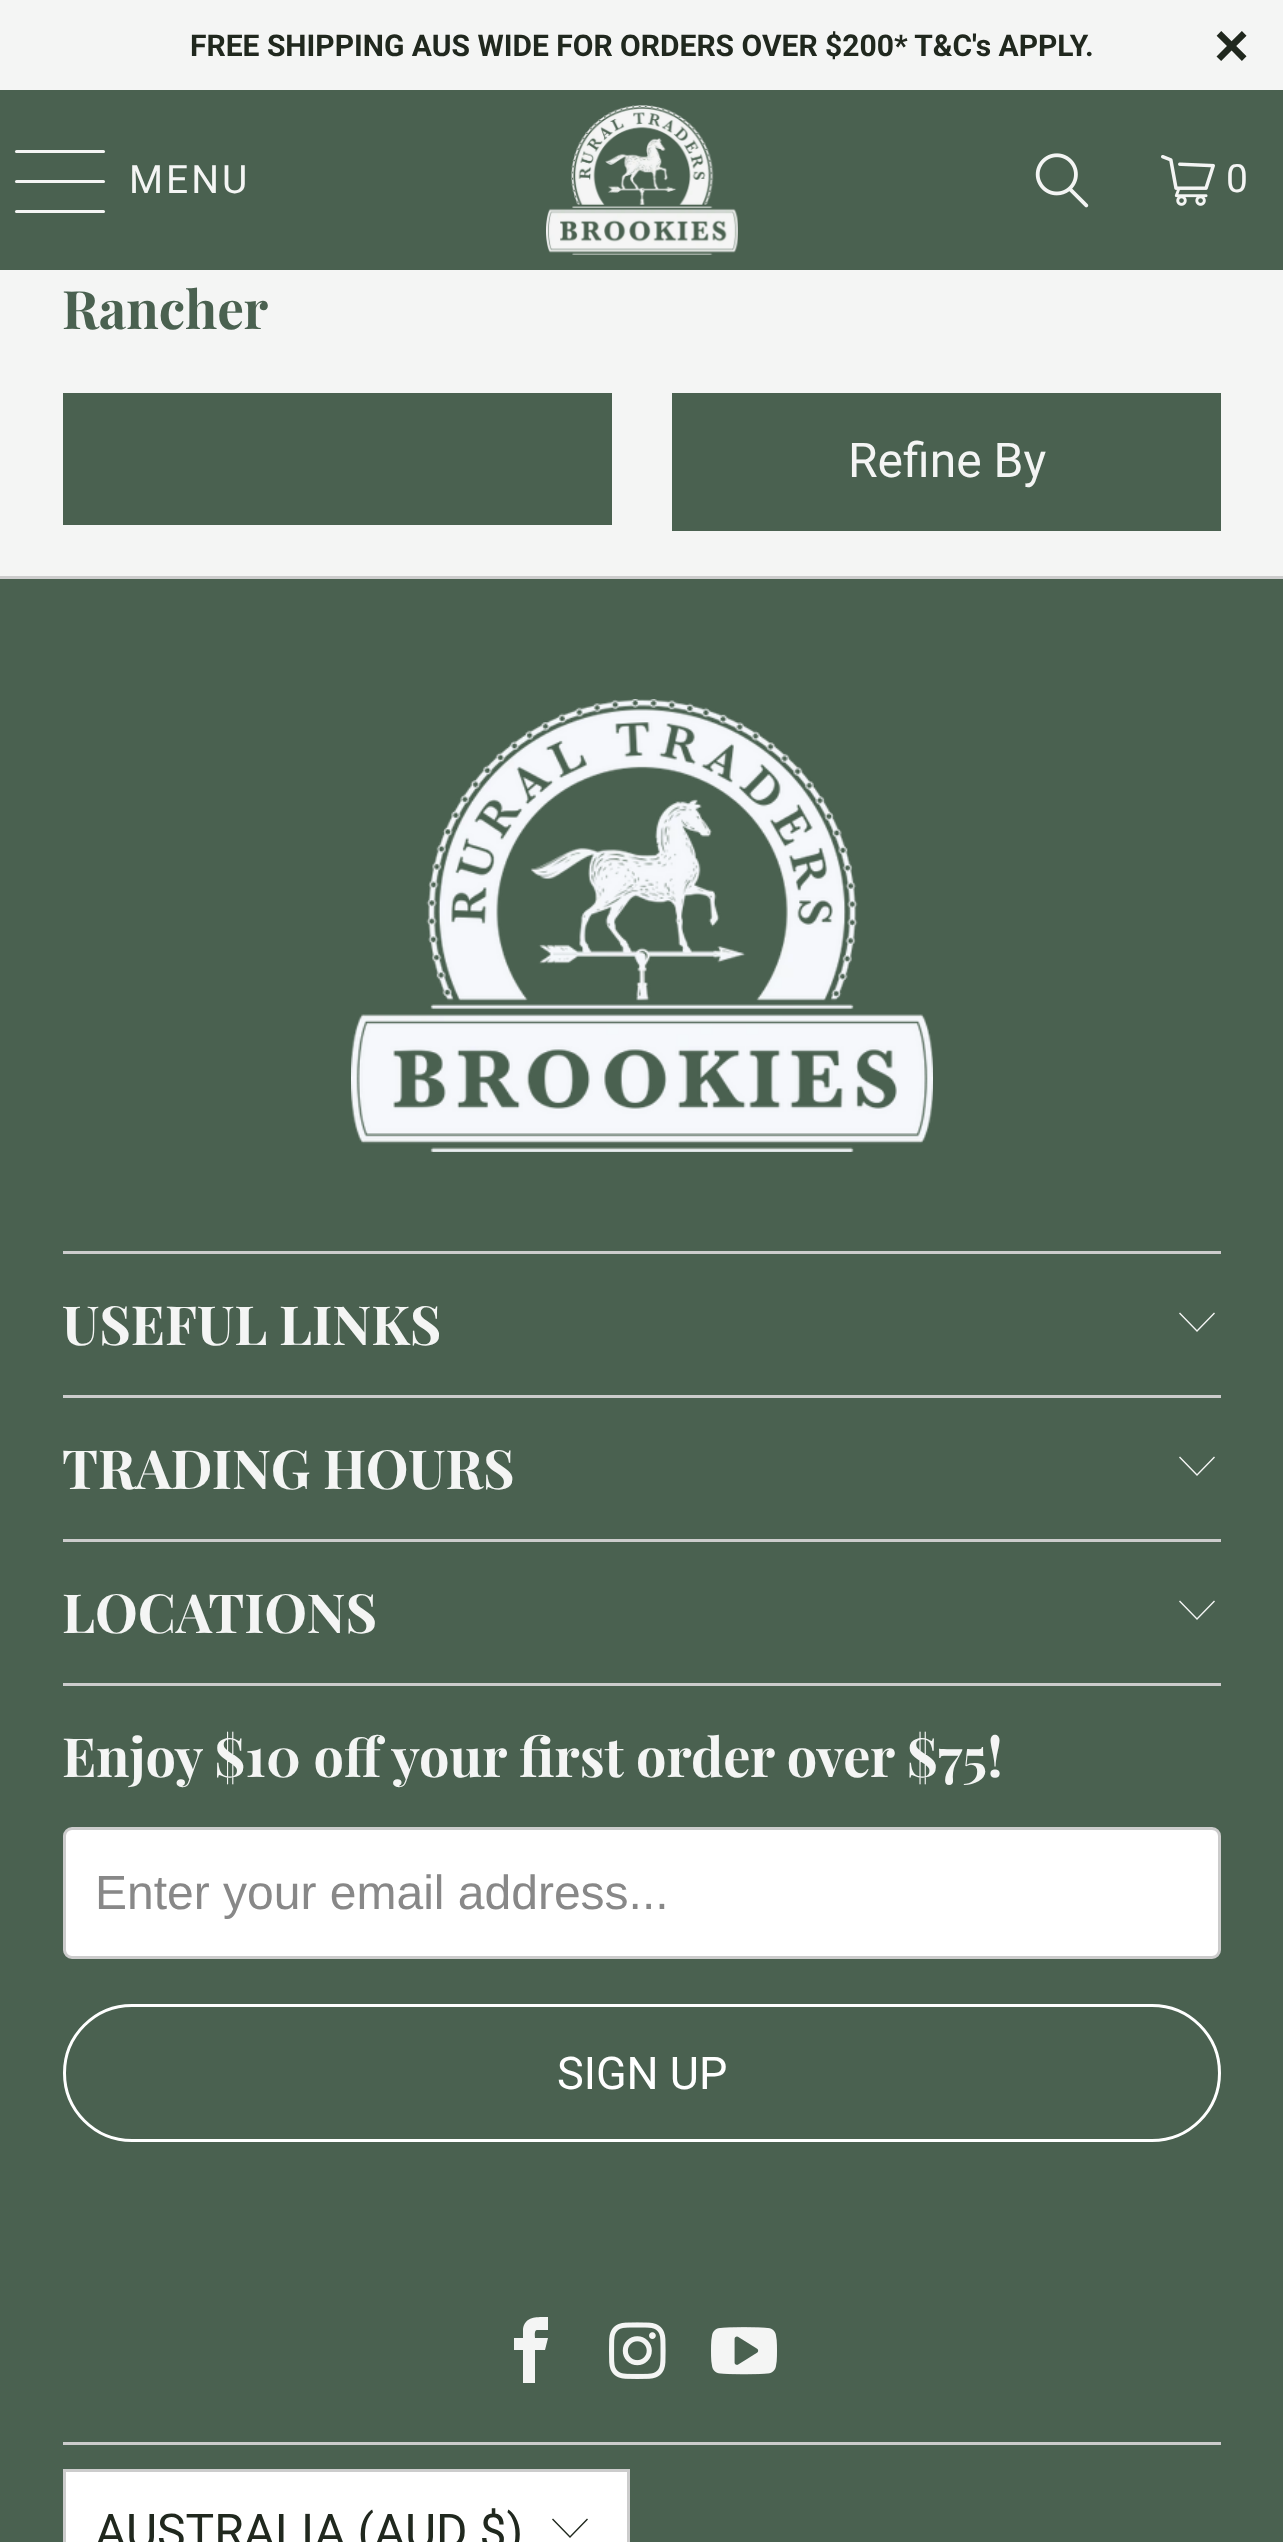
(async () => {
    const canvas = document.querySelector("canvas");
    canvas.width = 1283;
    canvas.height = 2542;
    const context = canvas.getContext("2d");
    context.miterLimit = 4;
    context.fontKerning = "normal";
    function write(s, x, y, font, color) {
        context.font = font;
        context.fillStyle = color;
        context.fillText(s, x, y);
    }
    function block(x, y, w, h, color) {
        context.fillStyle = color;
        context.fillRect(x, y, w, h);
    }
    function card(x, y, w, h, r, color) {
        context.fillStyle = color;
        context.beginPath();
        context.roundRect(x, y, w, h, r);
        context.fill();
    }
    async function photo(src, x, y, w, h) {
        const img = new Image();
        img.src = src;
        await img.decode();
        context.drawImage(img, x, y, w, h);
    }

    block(0, 0, 1283, 2542, "rgb(244, 245, 244)");
    write("FREE SHIPPING AUS WIDE FOR ORDERS OVER $200* T&C's APPLY.", 190, 56, "bold 30px Roboto", "rgb(32, 40, 30)");
    write("×", 1214, 66, "bold 60px Liberation Sans", "rgb(32, 40, 30)");
    block(0, 90, 1283, 180, "rgb(74, 97, 80)");
    card(15, 150, 90, 3, 1.5, "rgb(244, 245, 244)");
    card(15, 180, 90, 3, 1.5, "rgb(244, 245, 244)");
    card(15, 210, 90, 3, 1.5, "rgb(244, 245, 244)");
    context.letterSpacing = "3px";
    write("MENU", 129, 193, "39px Roboto", "rgb(244, 245, 244)");
    await photo("media/1.png", 546, 105, 192, 150);
    await photo("media/2.png", 1035, 153, 54, 55);
    await photo("media/3.png", 1161, 155, 54, 51);
    write("0", 1226, 192, "39px Roboto", "rgb(244, 245, 244)");
    context.letterSpacing = "0px";
    write("Rancher", 62, 329, "bold 53px Playfair Display", "rgb(74, 97, 80)");
    block(63, 393, 549, 132, "rgb(74, 97, 80)");
    block(672, 393, 549, 138, "rgb(74, 97, 80)");
    write("Refine By", 848, 477, "48px Roboto", "rgb(244, 245, 244)");
    block(0, 579, 1283, 1963, "rgb(74, 97, 80)");
    block(0, 576, 1283, 3, "rgb(204, 204, 204)");
    await photo("media/4.png", 351, 699, 582, 453);
    block(63, 1251, 1158, 3, "rgb(204, 204, 204)");
    write("USEFUL LINKS", 62, 1345, "bold 54px Playfair Display", "rgb(244, 245, 244)");
    context.beginPath();
    context.moveTo(1197, 1332);
    context.lineTo(1179, 1313.5);
    context.lineTo(1180, 1312.5);
    context.lineTo(1197, 1330);
    context.lineTo(1214, 1312.5);
    context.lineTo(1215, 1313.5);
    context.closePath();
    context.fill();
    block(63, 1395, 1158, 3, "rgb(204, 204, 204)");
    write("TRADING HOURS", 62, 1489, "bold 54px Playfair Display", "rgb(244, 245, 244)");
    context.beginPath();
    context.moveTo(1197, 1476);
    context.lineTo(1179, 1457.5);
    context.lineTo(1180, 1456.5);
    context.lineTo(1197, 1474);
    context.lineTo(1214, 1456.5);
    context.lineTo(1215, 1457.5);
    context.closePath();
    context.fill();
    block(63, 1539, 1158, 3, "rgb(204, 204, 204)");
    write("LOCATIONS", 62, 1633, "bold 54px Playfair Display", "rgb(244, 245, 244)");
    context.beginPath();
    context.moveTo(1197, 1620);
    context.lineTo(1179, 1601.5);
    context.lineTo(1180, 1600.5);
    context.lineTo(1197, 1618);
    context.lineTo(1214, 1600.5);
    context.lineTo(1215, 1601.5);
    context.closePath();
    context.fill();
    block(63, 1683, 1158, 3, "rgb(204, 204, 204)");
    write("Enjoy $10 off your first order over $75!", 62, 1777, "bold 54px Playfair Display", "rgb(244, 245, 244)");
    context.fillStyle = "rgb(255, 255, 255)";
    context.beginPath();
    context.roundRect(64.5, 1828.5, 1155, 129, 7.5);
    context.fill();
    context.strokeStyle = "rgb(204, 204, 204)";
    context.lineWidth = 3;
    context.stroke();
    write("Enter your email address...", 95, 1909, "48px Liberation Sans", "rgb(136, 136, 136)");
    context.beginPath();
    context.roundRect(64.5, 2005.5, 1155, 135, 67.5);
    context.strokeStyle = "rgb(255, 255, 255)";
    context.stroke();
    write("SIGN UP", 557, 2089, "45px Roboto", "rgb(255, 255, 255)");
    context.fillStyle = "rgb(244, 245, 244)";
    context.beginPath();
    context.moveTo(537, 2330);
    context.lineTo(548, 2330);
    context.lineTo(548, 2317);
    context.bezierCurveTo(537, 2317, 525, 2316, 523, 2329);
    context.lineTo(523, 2338);
    context.lineTo(514, 2338);
    context.lineTo(514, 2350);
    context.lineTo(523, 2350);
    context.lineTo(523, 2383);
    context.lineTo(535, 2383);
    context.lineTo(535, 2350);
    context.lineTo(545, 2350);
    context.lineTo(548, 2338);
    context.lineTo(535, 2338);
    context.bezierCurveTo(535, 2336, 534, 2330, 537, 2330);
    context.closePath();
    context.fill();
    await photo("media/5.png", 609, 2322, 57, 57);
    await photo("media/6.png", 711, 2327, 66, 48);
    block(63, 2442, 1158, 3, "rgb(204, 204, 204)");
    context.fillStyle = "rgb(255, 255, 255)";
    context.beginPath();
    context.rect(64.5, 2470.5, 564, 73);
    context.fill();
    context.strokeStyle = "rgb(204, 204, 204)";
    context.stroke();
    write("AUSTRALIA (AUD $)", 95, 2548, "48px Roboto", "rgb(32, 40, 30)");
    context.beginPath();
    context.moveTo(570, 2538);
    context.lineTo(552, 2519.5);
    context.lineTo(553, 2518.5);
    context.lineTo(570, 2536);
    context.lineTo(587, 2518.5);
    context.lineTo(588, 2519.5);
    context.closePath();
    context.fill();
})();
